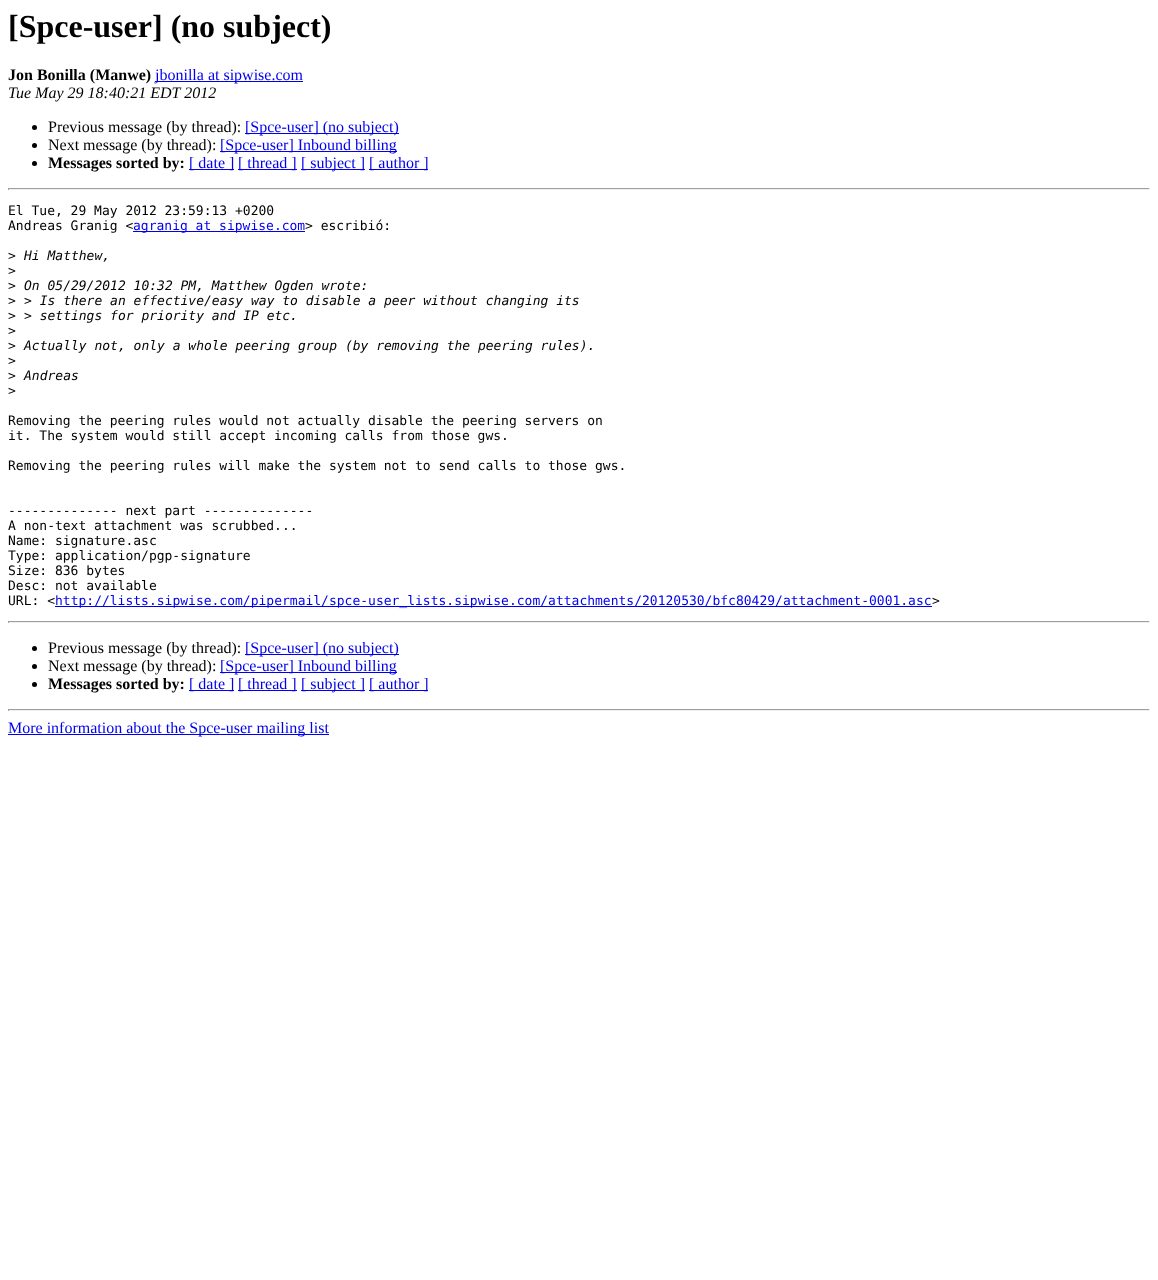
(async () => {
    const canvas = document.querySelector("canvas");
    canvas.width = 1158;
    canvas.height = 1280;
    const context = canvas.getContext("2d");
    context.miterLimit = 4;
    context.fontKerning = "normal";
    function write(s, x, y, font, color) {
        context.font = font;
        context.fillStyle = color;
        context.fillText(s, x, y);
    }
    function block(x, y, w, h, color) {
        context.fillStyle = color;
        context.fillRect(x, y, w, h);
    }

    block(0, 0, 1158, 1280, "rgb(255, 255, 255)");
    write("[Spce-user] (no subject)", 8, 37, "bold 32px Liberation Serif", "rgb(0, 0, 0)");
    write("Jon Bonilla (Manwe)", 8, 80, "bold 16px Liberation Serif", "rgb(0, 0, 0)");
    block(155, 81, 148, 1, "rgb(0, 0, 238)");
    write("jbonilla at sipwise.com", 155, 80, "16px Liberation Serif", "rgb(0, 0, 238)");
    write("Tue May 29 18:40:21 EDT 2012", 8, 98, "italic 16px Liberation Serif", "rgb(0, 0, 0)");
    context.beginPath();
    context.arc(34.5, 127.5, 2.5, 0, Math.PI * 2);
    context.fill();
    write("Previous message (by thread):", 48, 132, "16px Liberation Serif", "rgb(0, 0, 0)");
    block(245, 133, 154, 1, "rgb(0, 0, 238)");
    write("[Spce-user] (no subject)", 245, 132, "16px Liberation Serif", "rgb(0, 0, 238)");
    context.fillStyle = "rgb(0, 0, 0)";
    context.beginPath();
    context.arc(34.5, 145.5, 2.5, 0, Math.PI * 2);
    context.fill();
    write("Next message (by thread):", 48, 150, "16px Liberation Serif", "rgb(0, 0, 0)");
    block(220, 151, 177, 1, "rgb(0, 0, 238)");
    write("[Spce-user] Inbound billing", 220, 150, "16px Liberation Serif", "rgb(0, 0, 238)");
    context.fillStyle = "rgb(0, 0, 0)";
    context.beginPath();
    context.arc(34.5, 163.5, 2.5, 0, Math.PI * 2);
    context.fill();
    write("Messages sorted by:", 48, 168, "bold 16px Liberation Serif", "rgb(0, 0, 0)");
    block(189, 169, 45, 1, "rgb(0, 0, 238)");
    write("[ date ]", 189, 168, "16px Liberation Serif", "rgb(0, 0, 238)");
    block(238, 169, 59, 1, "rgb(0, 0, 238)");
    write("[ thread ]", 238, 168, "16px Liberation Serif", "rgb(0, 0, 238)");
    block(301, 169, 64, 1, "rgb(0, 0, 238)");
    write("[ subject ]", 301, 168, "16px Liberation Serif", "rgb(0, 0, 238)");
    block(369, 169, 59, 1, "rgb(0, 0, 238)");
    write("[ author ]", 369, 168, "16px Liberation Serif", "rgb(0, 0, 238)");
    block(8, 188, 1142, 1, "rgb(159, 159, 159)");
    block(1149, 188, 1, 2, "rgb(238, 238, 238)");
    block(8, 189, 1142, 1, "rgb(238, 238, 238)");
    block(8, 188, 1, 2, "rgb(159, 159, 159)");
    write("El Tue, 29 May 2012 23:59:13 +0200", 8, 215, "13px DejaVu Sans Mono", "rgb(0, 0, 0)");
    write("Andreas Granig <", 8, 230, "13px DejaVu Sans Mono", "rgb(0, 0, 0)");
    block(133, 231, 172, 1, "rgb(0, 0, 238)");
    write("agranig at sipwise.com", 133, 230, "13px DejaVu Sans Mono", "rgb(0, 0, 238)");
    write("> escribió:", 305, 230, "13px DejaVu Sans Mono", "rgb(0, 0, 0)");
    write(">", 8, 260, "13px DejaVu Sans Mono", "rgb(0, 0, 0)");
    write("Hi Matthew,", 24, 260, "italic 13px DejaVu Sans Mono", "rgb(0, 0, 0)");
    write(">", 8, 275, "13px DejaVu Sans Mono", "rgb(0, 0, 0)");
    write(">", 8, 290, "13px DejaVu Sans Mono", "rgb(0, 0, 0)");
    write("On 05/29/2012 10:32 PM, Matthew Ogden wrote:", 24, 290, "italic 13px DejaVu Sans Mono", "rgb(0, 0, 0)");
    write(">", 8, 305, "13px DejaVu Sans Mono", "rgb(0, 0, 0)");
    write("> Is there an effective/easy way to disable a peer without changing its", 24, 305, "italic 13px DejaVu Sans Mono", "rgb(0, 0, 0)");
    write(">", 8, 320, "13px DejaVu Sans Mono", "rgb(0, 0, 0)");
    write("> settings for priority and IP etc.", 24, 320, "italic 13px DejaVu Sans Mono", "rgb(0, 0, 0)");
    write(">", 8, 335, "13px DejaVu Sans Mono", "rgb(0, 0, 0)");
    write(">", 8, 350, "13px DejaVu Sans Mono", "rgb(0, 0, 0)");
    write("Actually not, only a whole peering group (by removing the peering rules).", 24, 350, "italic 13px DejaVu Sans Mono", "rgb(0, 0, 0)");
    write(">", 8, 365, "13px DejaVu Sans Mono", "rgb(0, 0, 0)");
    write(">", 8, 380, "13px DejaVu Sans Mono", "rgb(0, 0, 0)");
    write("Andreas", 24, 380, "italic 13px DejaVu Sans Mono", "rgb(0, 0, 0)");
    write(">", 8, 395, "13px DejaVu Sans Mono", "rgb(0, 0, 0)");
    write("Removing the peering rules would not actually disable the peering servers on", 8, 425, "13px DejaVu Sans Mono", "rgb(0, 0, 0)");
    write("it. The system would still accept incoming calls from those gws.", 8, 440, "13px DejaVu Sans Mono", "rgb(0, 0, 0)");
    write("Removing the peering rules will make the system not to send calls to those gws.", 8, 470, "13px DejaVu Sans Mono", "rgb(0, 0, 0)");
    write("-------------- next part --------------", 8, 515, "13px DejaVu Sans Mono", "rgb(0, 0, 0)");
    write("A non-text attachment was scrubbed...", 8, 530, "13px DejaVu Sans Mono", "rgb(0, 0, 0)");
    write("Name: signature.asc", 8, 545, "13px DejaVu Sans Mono", "rgb(0, 0, 0)");
    write("Type: application/pgp-signature", 8, 560, "13px DejaVu Sans Mono", "rgb(0, 0, 0)");
    write("Size: 836 bytes", 8, 575, "13px DejaVu Sans Mono", "rgb(0, 0, 0)");
    write("Desc: not available", 8, 590, "13px DejaVu Sans Mono", "rgb(0, 0, 0)");
    write("URL: <", 8, 605, "13px DejaVu Sans Mono", "rgb(0, 0, 0)");
    block(55, 606, 877, 1, "rgb(0, 0, 238)");
    write("http://lists.sipwise.com/pipermail/spce-user_lists.sipwise.com/attachments/20120530/bfc80429/attachment-0001.asc", 55, 605, "13px DejaVu Sans Mono", "rgb(0, 0, 238)");
    write(">", 932, 605, "13px DejaVu Sans Mono", "rgb(0, 0, 0)");
    block(8, 621, 1142, 1, "rgb(159, 159, 159)");
    block(1149, 621, 1, 2, "rgb(238, 238, 238)");
    block(8, 622, 1142, 1, "rgb(238, 238, 238)");
    block(8, 621, 1, 2, "rgb(159, 159, 159)");
    context.fillStyle = "rgb(0, 0, 0)";
    context.beginPath();
    context.arc(34.5, 648.5, 2.5, 0, Math.PI * 2);
    context.fill();
    write("Previous message (by thread):", 48, 653, "16px Liberation Serif", "rgb(0, 0, 0)");
    block(245, 654, 154, 1, "rgb(0, 0, 238)");
    write("[Spce-user] (no subject)", 245, 653, "16px Liberation Serif", "rgb(0, 0, 238)");
    context.fillStyle = "rgb(0, 0, 0)";
    context.beginPath();
    context.arc(34.5, 666.5, 2.5, 0, Math.PI * 2);
    context.fill();
    write("Next message (by thread):", 48, 671, "16px Liberation Serif", "rgb(0, 0, 0)");
    block(220, 672, 177, 1, "rgb(0, 0, 238)");
    write("[Spce-user] Inbound billing", 220, 671, "16px Liberation Serif", "rgb(0, 0, 238)");
    context.fillStyle = "rgb(0, 0, 0)";
    context.beginPath();
    context.arc(34.5, 684.5, 2.5, 0, Math.PI * 2);
    context.fill();
    write("Messages sorted by:", 48, 689, "bold 16px Liberation Serif", "rgb(0, 0, 0)");
    block(189, 690, 45, 1, "rgb(0, 0, 238)");
    write("[ date ]", 189, 689, "16px Liberation Serif", "rgb(0, 0, 238)");
    block(238, 690, 59, 1, "rgb(0, 0, 238)");
    write("[ thread ]", 238, 689, "16px Liberation Serif", "rgb(0, 0, 238)");
    block(301, 690, 64, 1, "rgb(0, 0, 238)");
    write("[ subject ]", 301, 689, "16px Liberation Serif", "rgb(0, 0, 238)");
    block(369, 690, 59, 1, "rgb(0, 0, 238)");
    write("[ author ]", 369, 689, "16px Liberation Serif", "rgb(0, 0, 238)");
    block(8, 709, 1142, 1, "rgb(159, 159, 159)");
    block(1149, 709, 1, 2, "rgb(238, 238, 238)");
    block(8, 710, 1142, 1, "rgb(238, 238, 238)");
    block(8, 709, 1, 2, "rgb(159, 159, 159)");
    block(8, 734, 321, 1, "rgb(0, 0, 238)");
    write("More information about the Spce-user mailing list", 8, 733, "16px Liberation Serif", "rgb(0, 0, 238)");
})();
